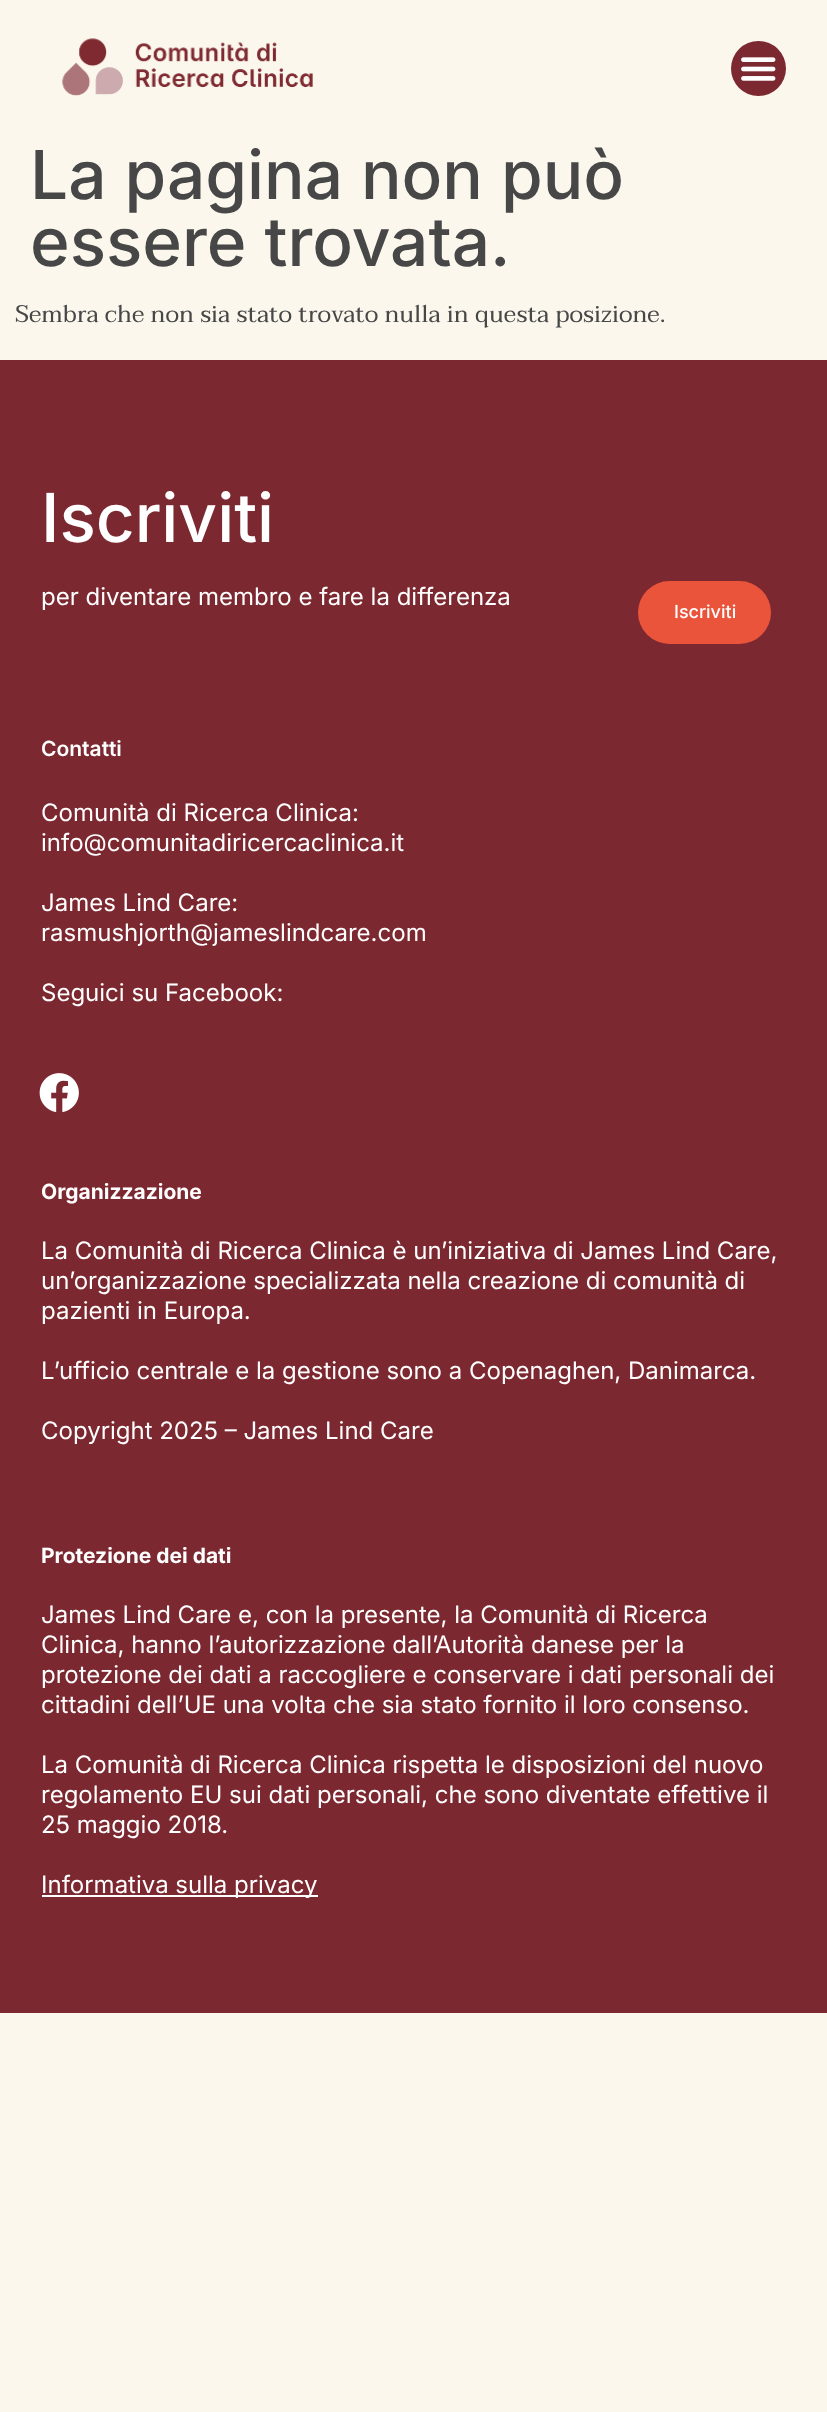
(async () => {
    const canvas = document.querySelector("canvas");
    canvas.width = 827;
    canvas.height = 2412;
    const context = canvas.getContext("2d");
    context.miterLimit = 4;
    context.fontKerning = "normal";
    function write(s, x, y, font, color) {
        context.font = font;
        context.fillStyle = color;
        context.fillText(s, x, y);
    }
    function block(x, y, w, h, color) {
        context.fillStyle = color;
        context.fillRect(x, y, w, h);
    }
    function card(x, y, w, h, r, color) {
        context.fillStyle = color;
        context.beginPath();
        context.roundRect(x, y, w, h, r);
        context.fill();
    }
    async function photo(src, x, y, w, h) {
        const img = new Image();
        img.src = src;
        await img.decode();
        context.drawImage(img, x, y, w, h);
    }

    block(0, 0, 827, 2412, "rgb(251, 247, 237)");
    await photo("media/1.png", 62, 38, 251, 58);
    context.fillStyle = "rgb(124, 40, 48)";
    context.beginPath();
    context.arc(758.5, 68.5, 27.5, 0, Math.PI * 2);
    context.fill();
    await photo("media/2.png", 741, 57, 35, 24);
    write("La pagina non può", 30, 199, "500 67.5px Inter", "rgb(71, 71, 71)");
    write("essere trovata.", 30, 266, "500 67.5px Inter", "rgb(71, 71, 71)");
    write("Sembra che non sia stato trovato nulla in questa posizione.", 15, 322, "24px Taviraj", "rgb(71, 71, 71)");
    block(0, 360, 827, 1653, "rgb(124, 40, 48)");
    write("Iscriviti", 41, 542, "500 67.5px Inter", "rgb(255, 255, 255)");
    write("per diventare membro e fare la differenza", 41, 605, "24px Inter", "rgb(255, 255, 255)");
    card(638, 581, 133, 63, 31.5, "rgb(234, 84, 59)");
    write("Iscriviti", 674, 618, "500 18px Inter", "rgb(255, 255, 255)");
    write("Contatti", 41, 756, "600 21px Inter", "rgb(255, 255, 255)");
    write("Comunità di Ricerca Clinica:", 41, 821, "24px Inter", "rgb(255, 255, 255)");
    write("info@comunitadiricercaclinica.it", 41, 851, "24px Inter", "rgb(255, 255, 255)");
    write("James Lind Care:", 41, 911, "24px Inter", "rgb(255, 255, 255)");
    write("rasmushjorth@jameslindcare.com", 41, 941, "24px Inter", "rgb(255, 255, 255)");
    write("Seguici su Facebook:", 41, 1001, "24px Inter", "rgb(255, 255, 255)");
    await photo("media/3.png", 39, 1073, 40, 40);
    write("Organizzazione", 41, 1199, "bold 21px Inter", "rgb(255, 255, 255)");
    write("La Comunità di Ricerca Clinica è un’iniziativa di James Lind Care,", 41, 1259, "24px Inter", "rgb(255, 255, 255)");
    write("un’organizzazione specializzata nella creazione di comunità di", 41, 1289, "24px Inter", "rgb(255, 255, 255)");
    write("pazienti in Europa.", 41, 1319, "24px Inter", "rgb(255, 255, 255)");
    write("L’ufficio centrale e la gestione sono a Copenaghen, Danimarca.", 41, 1379, "24px Inter", "rgb(255, 255, 255)");
    write("Copyright 2025 – James Lind Care", 41, 1439, "24px Inter", "rgb(255, 255, 255)");
    write("Protezione dei dati", 41, 1563, "bold 21px Inter", "rgb(255, 255, 255)");
    write("James Lind Care e, con la presente, la Comunità di Ricerca", 41, 1623, "24px Inter", "rgb(255, 255, 255)");
    write("Clinica, hanno l’autorizzazione dall’Autorità danese per la", 41, 1653, "24px Inter", "rgb(255, 255, 255)");
    write("protezione dei dati a raccogliere e conservare i dati personali dei", 41, 1683, "24px Inter", "rgb(255, 255, 255)");
    write("cittadini dell’UE una volta che sia stato fornito il loro consenso.", 41, 1713, "24px Inter", "rgb(255, 255, 255)");
    write("La Comunità di Ricerca Clinica rispetta le disposizioni del nuovo", 41, 1773, "24px Inter", "rgb(255, 255, 255)");
    write("regolamento EU sui dati personali, che sono diventate effettive il", 41, 1803, "24px Inter", "rgb(255, 255, 255)");
    write("25 maggio 2018.", 41, 1833, "24px Inter", "rgb(255, 255, 255)");
    block(42, 1895, 276, 2, "rgb(255, 255, 255)");
    write("Informativa sulla privacy", 41, 1893, "24px Inter", "rgb(255, 255, 255)");
})();
